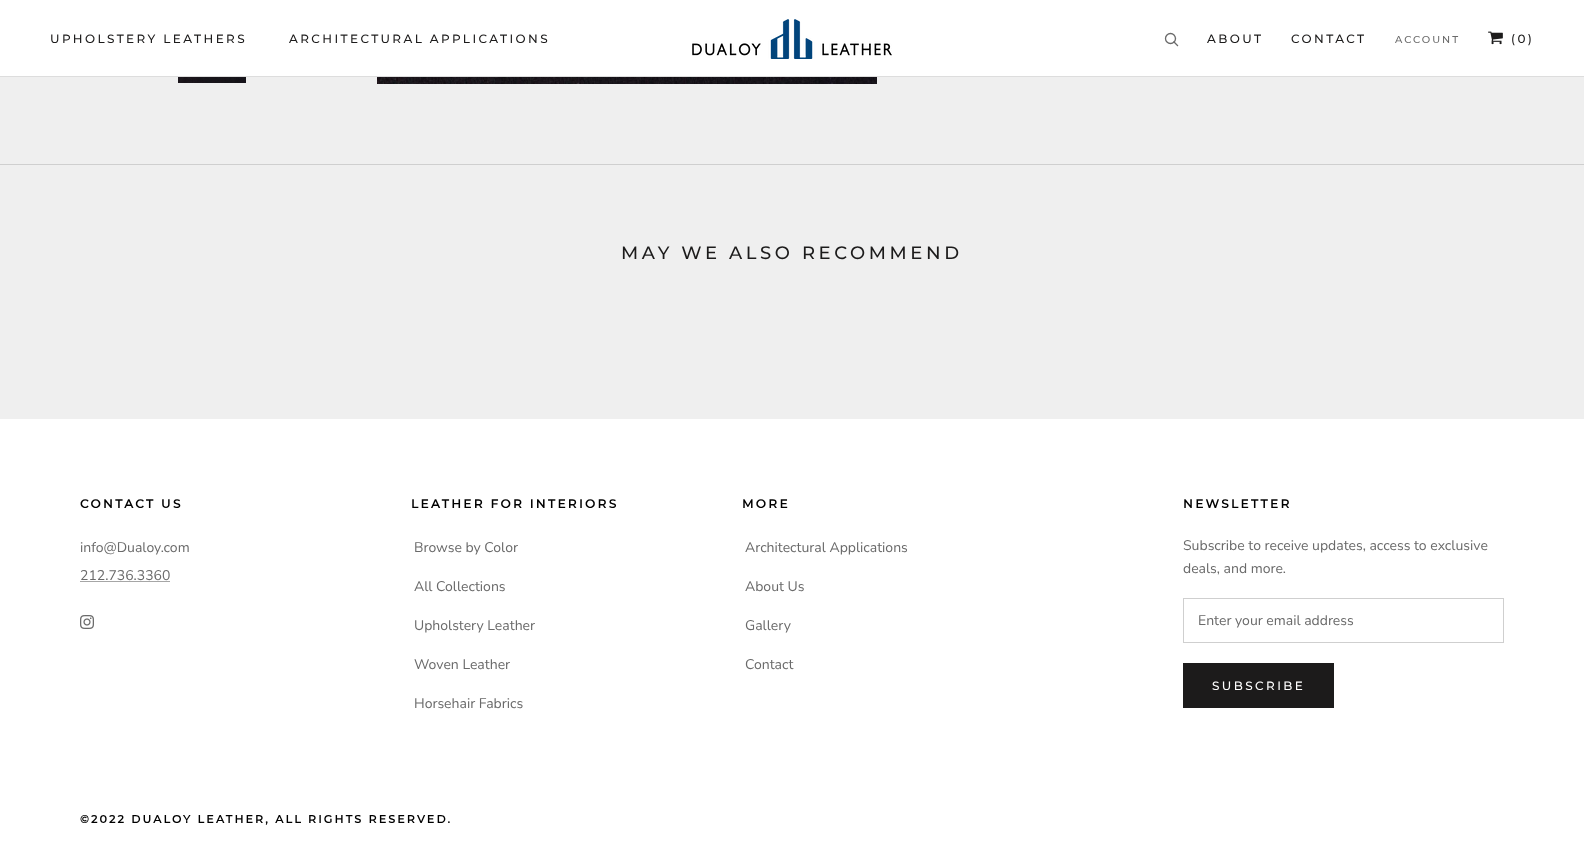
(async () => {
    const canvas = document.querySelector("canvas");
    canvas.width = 1584;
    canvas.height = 852;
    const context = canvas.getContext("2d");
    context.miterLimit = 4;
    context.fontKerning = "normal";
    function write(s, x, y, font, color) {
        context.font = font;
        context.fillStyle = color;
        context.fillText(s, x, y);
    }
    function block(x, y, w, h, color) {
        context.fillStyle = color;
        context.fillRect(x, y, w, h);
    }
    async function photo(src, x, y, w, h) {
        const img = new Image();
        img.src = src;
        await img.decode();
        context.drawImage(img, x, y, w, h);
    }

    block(0, 0, 1584, 852, "rgb(239, 239, 239)");
    block(0, 0, 1584, 76, "rgb(255, 255, 255)");
    block(0, 76, 1584, 1, "rgb(221, 221, 221)");
    context.letterSpacing = "2.4px";
    write("UPHOLSTERY LEATHERS", 50, 43, "500 12px Montserrat", "rgb(28, 27, 27)");
    write("ARCHITECTURAL APPLICATIONS", 289, 43, "500 12px Montserrat", "rgb(28, 27, 27)");
    await photo("media/1.png", 692, 19, 200, 40);
    context.beginPath();
    context.moveTo(1177.5, 45.5);
    context.lineTo(1174, 42);
    context.strokeStyle = "rgb(106, 106, 106)";
    context.lineWidth = 1.3;
    context.lineCap = "square";
    context.stroke();
    context.beginPath();
    context.arc(1170.5, 38.5, 5, 0, Math.PI * 2);
    context.stroke();
    write("ABOUT", 1207, 43, "500 12px Montserrat", "rgb(28, 27, 27)");
    write("CONTACT", 1291, 43, "500 12px Montserrat", "rgb(28, 27, 27)");
    context.letterSpacing = "2px";
    write("ACCOUNT", 1395, 43, "500 10px Montserrat", "rgb(106, 106, 106)");
    await photo("media/2.png", 1488, 31, 15, 14);
    context.letterSpacing = "2.4px";
    write("(0)", 1511, 43, "500 12px Montserrat", "rgb(28, 27, 27)");
    await photo("media/3.png", 178, 77, 68, 6);
    await photo("media/4.png", 377, 77, 500, 7);
    block(0, 164, 1584, 1, "rgb(207, 207, 207)");
    context.letterSpacing = "3.6px";
    write("MAY WE ALSO RECOMMEND", 621, 259, "500 18px Montserrat", "rgb(28, 27, 27)");
    block(0, 419, 1584, 433, "rgb(255, 255, 255)");
    context.letterSpacing = "2.4px";
    write("CONTACT US", 80, 508, "bold 12px Montserrat", "rgb(0, 0, 0)");
    context.letterSpacing = "0px";
    write("info@Dualoy.com", 80, 552, "14px Nunito Sans", "rgb(106, 106, 106)");
    write("212.736.3360", 80, 580, "14px Nunito Sans", "rgb(106, 106, 106)");
    block(80, 581, 90, 1, "rgb(166, 166, 166)");
    await photo("media/5.png", 80, 615, 14, 14);
    context.letterSpacing = "2.4px";
    write("LEATHER FOR INTERIORS", 411, 508, "bold 12px Montserrat", "rgb(0, 0, 0)");
    context.letterSpacing = "0px";
    write("Browse by Color", 414, 552, "14px Nunito Sans", "rgb(106, 106, 106)");
    write("All Collections", 414, 591, "14px Nunito Sans", "rgb(106, 106, 106)");
    write("Upholstery Leather", 414, 630, "14px Nunito Sans", "rgb(106, 106, 106)");
    write("Woven Leather", 414, 669, "14px Nunito Sans", "rgb(106, 106, 106)");
    write("Horsehair Fabrics", 414, 708, "14px Nunito Sans", "rgb(106, 106, 106)");
    context.letterSpacing = "2.4px";
    write("MORE", 742, 508, "bold 12px Montserrat", "rgb(0, 0, 0)");
    context.letterSpacing = "0px";
    write("Architectural Applications", 745, 552, "14px Nunito Sans", "rgb(106, 106, 106)");
    write("About Us", 745, 591, "14px Nunito Sans", "rgb(106, 106, 106)");
    write("Gallery", 745, 630, "14px Nunito Sans", "rgb(106, 106, 106)");
    write("Contact", 745, 669, "14px Nunito Sans", "rgb(106, 106, 106)");
    context.letterSpacing = "2.4px";
    write("NEWSLETTER", 1183, 508, "bold 12px Montserrat", "rgb(0, 0, 0)");
    context.letterSpacing = "0px";
    write("Subscribe to receive updates, access to exclusive", 1183, 550, "14px Nunito Sans", "rgb(106, 106, 106)");
    write("deals, and more.", 1183, 573, "14px Nunito Sans", "rgb(106, 106, 106)");
    context.strokeStyle = "rgb(207, 207, 207)";
    context.lineWidth = 1;
    context.strokeRect(1183.5, 598.5, 320, 44);
    write("Enter your email address", 1198, 625, "14px Nunito Sans", "rgb(106, 106, 106)");
    context.strokeStyle = "rgb(28, 27, 27)";
    context.strokeRect(1183.5, 663.5, 150, 44);
    block(1184, 664, 149, 43, "rgb(28, 27, 27)");
    context.letterSpacing = "2.4px";
    write("SUBSCRIBE", 1212, 690, "500 12px Montserrat", "rgb(255, 255, 255)");
    context.letterSpacing = "2.2px";
    write("©2022 DUALOY LEATHER, ALL RIGHTS RESERVED.", 80, 823, "bold 11px Montserrat", "rgb(0, 0, 0)");
})();
